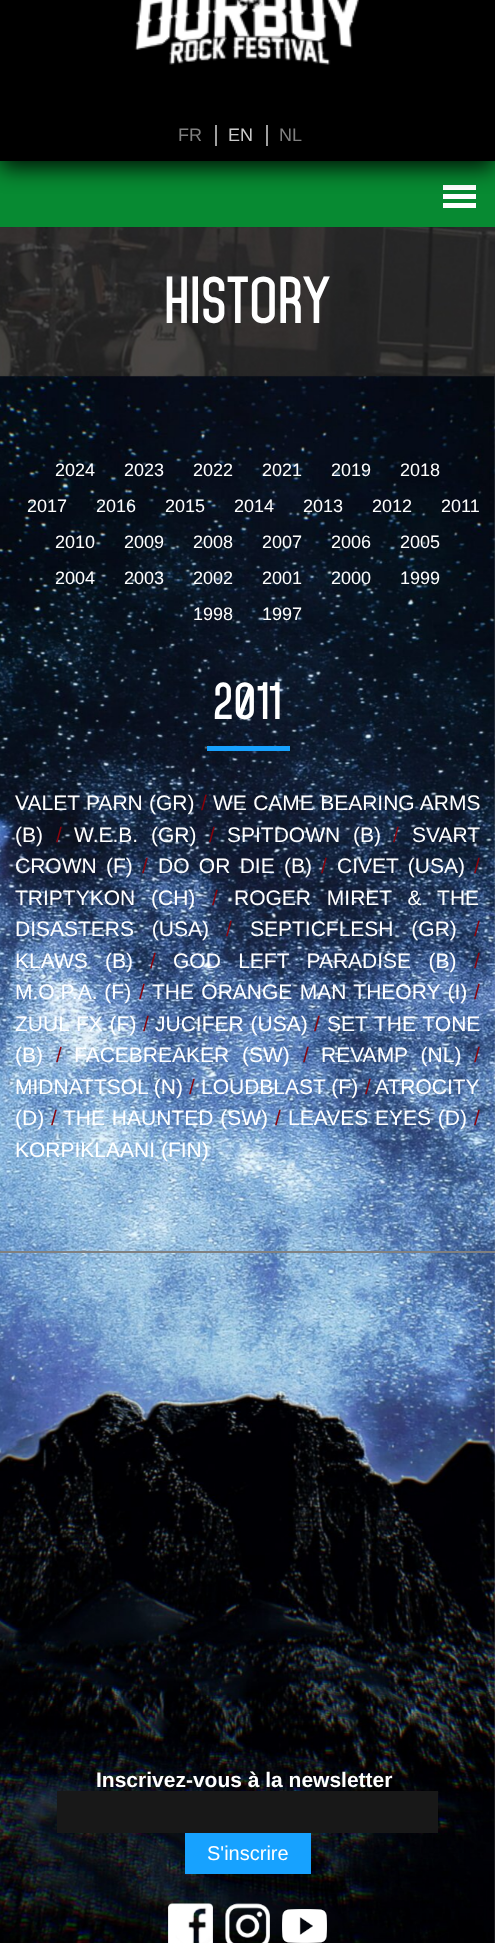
<svg xmlns="http://www.w3.org/2000/svg" width="495" height="1943">
	<rect width="100%" height="100%" fill="#FFFFFF" />
	<image x="0" y="376" width="495" height="1567" href="assets/img1.png" />
	<rect x="0" y="0" width="495" height="102" fill="#000000" />
	<image x="134" y="0" width="225" height="65" href="assets/img2.png" />
	<rect x="0" y="161" width="495" height="66" fill="#078A32" />
	<rect x="443" y="185" width="33" height="5" fill="#FFFFFF" />
	<rect x="443" y="194" width="33" height="5" fill="#FFFFFF" />
	<rect x="0" y="110" width="495" height="58" fill="#000000" fill-opacity="0.87" filter="blur(11px)" />
	<rect x="0" y="102" width="495" height="59" fill="#000000" />
	<text x="178" y="141" font-family="Liberation Sans" font-size="18" fill="#808080">FR</text>
	<rect x="215" y="125" width="2" height="21" fill="#9F9F9F" />
	<text x="228" y="141" font-family="Liberation Sans" font-size="18" fill="#CCCCCC">EN</text>
	<rect x="266" y="125" width="2" height="21" fill="#9F9F9F" />
	<text x="279" y="141" font-family="Liberation Sans" font-size="18" fill="#808080">NL</text>
	<rect x="443" y="203" width="33" height="5" fill="#FFFFFF" />
	<image x="0" y="227" width="495" height="150" href="assets/img3.png" />
	<text x="164" y="323" font-family="Mohave" font-size="57" font-weight="700" fill="#FFFFFF">HISTORY</text>
	<g font-family="Liberation Sans" font-size="18" fill="#FFFFFF">
		<text x="55" y="476">2024</text>
		<text x="124" y="476">2023</text>
		<text x="193" y="476">2022</text>
		<text x="262" y="476">2021</text>
		<text x="331" y="476">2019</text>
		<text x="400" y="476">2018</text>
		<text x="27" y="512">2017</text>
		<text x="96" y="512">2016</text>
		<text x="165" y="512">2015</text>
		<text x="234" y="512">2014</text>
		<text x="303" y="512">2013</text>
		<text x="372" y="512">2012</text>
		<text x="441" y="512">2011</text>
		<text x="55" y="548">2010</text>
		<text x="124" y="548">2009</text>
		<text x="193" y="548">2008</text>
		<text x="262" y="548">2007</text>
		<text x="331" y="548">2006</text>
		<text x="400" y="548">2005</text>
		<text x="55" y="584">2004</text>
		<text x="124" y="584">2003</text>
		<text x="193" y="584">2002</text>
		<text x="262" y="584">2001</text>
		<text x="331" y="584">2000</text>
		<text x="400" y="584">1999</text>
		<text x="193" y="620">1998</text>
		<text x="262" y="620">1997</text>
	</g>
	<text x="213" y="719" font-family="Mohave" font-size="45" font-weight="700" fill="#FFFFFF">2011</text>
	<rect x="207" y="746" width="83" height="5" fill="#17A2FF" />
	<text x="15" y="810" word-spacing="0.5" font-family="Liberation Sans" font-size="21" fill="#FFFFFF">VALET PARN (GR)</text>
	<text x="201" y="810" font-family="Liberation Sans" font-size="21" fill="#88030C">/</text>
	<g font-family="Liberation Sans" font-size="21" fill="#FFFFFF">
		<text x="213" y="810" word-spacing="0.5">WE CAME BEARING ARMS</text>
		<text x="15" y="842">(B)</text>
	</g>
	<text x="56" y="842" font-family="Liberation Sans" font-size="21" fill="#88030C">/</text>
	<text x="74" y="842" word-spacing="7" font-family="Liberation Sans" font-size="21" fill="#FFFFFF">W.E.B. (GR)</text>
	<text x="209" y="842" font-family="Liberation Sans" font-size="21" fill="#88030C">/</text>
	<text x="227" y="842" word-spacing="7" font-family="Liberation Sans" font-size="21" fill="#FFFFFF">SPITDOWN (B)</text>
	<text x="393" y="842" font-family="Liberation Sans" font-size="21" fill="#88030C">/</text>
	<g font-family="Liberation Sans" font-size="21" fill="#FFFFFF">
		<text x="412" y="842">SVART</text>
		<text x="15" y="873" word-spacing="3.5">CROWN (F)</text>
	</g>
	<text x="142" y="873" font-family="Liberation Sans" font-size="21" fill="#88030C">/</text>
	<text x="158" y="873" word-spacing="3.5" font-family="Liberation Sans" font-size="21" fill="#FFFFFF">DO OR DIE (B)</text>
	<text x="321" y="873" font-family="Liberation Sans" font-size="21" fill="#88030C">/</text>
	<text x="337" y="873" word-spacing="3.5" font-family="Liberation Sans" font-size="21" fill="#FFFFFF">CIVET (USA)</text>
	<text x="474" y="873" font-family="Liberation Sans" font-size="21" fill="#88030C">/</text>
	<text x="15" y="905" word-spacing="10" font-family="Liberation Sans" font-size="21" fill="#FFFFFF">TRIPTYKON (CH)</text>
	<text x="212" y="905" font-family="Liberation Sans" font-size="21" fill="#88030C">/</text>
	<g font-family="Liberation Sans" font-size="21" fill="#FFFFFF">
		<text x="234" y="905" word-spacing="10">ROGER MIRET &amp; THE</text>
		<text x="15" y="936" word-spacing="12">DISASTERS (USA)</text>
	</g>
	<text x="226" y="936" font-family="Liberation Sans" font-size="21" fill="#88030C">/</text>
	<text x="250" y="936" word-spacing="12" font-family="Liberation Sans" font-size="21" fill="#FFFFFF">SEPTICFLESH (GR)</text>
	<text x="474" y="936" font-family="Liberation Sans" font-size="21" fill="#88030C">/</text>
	<text x="15" y="968" word-spacing="11.5" font-family="Liberation Sans" font-size="21" fill="#FFFFFF">KLAWS (B)</text>
	<text x="150" y="968" font-family="Liberation Sans" font-size="21" fill="#88030C">/</text>
	<text x="173" y="968" word-spacing="11.5" font-family="Liberation Sans" font-size="21" fill="#FFFFFF">GOD LEFT PARADISE (B)</text>
	<text x="474" y="968" font-family="Liberation Sans" font-size="21" fill="#88030C">/</text>
	<text x="15" y="999" word-spacing="1" font-family="Liberation Sans" font-size="21" fill="#FFFFFF">M.O.P.A. (F)</text>
	<text x="139" y="999" font-family="Liberation Sans" font-size="21" fill="#88030C">/</text>
	<text x="152" y="999" word-spacing="1.5" font-family="Liberation Sans" font-size="21" fill="#FFFFFF">THE ORANGE MAN THEORY (I)</text>
	<text x="474" y="999" font-family="Liberation Sans" font-size="21" fill="#88030C">/</text>
	<text x="15" y="1031" word-spacing="1" font-family="Liberation Sans" font-size="21" fill="#FFFFFF">ZUUL FX (F)</text>
	<text x="143" y="1031" font-family="Liberation Sans" font-size="21" fill="#88030C">/</text>
	<text x="155" y="1031" word-spacing="1" font-family="Liberation Sans" font-size="21" fill="#FFFFFF">JUCIFER (USA)</text>
	<text x="314" y="1031" font-family="Liberation Sans" font-size="21" fill="#88030C">/</text>
	<g font-family="Liberation Sans" font-size="21" fill="#FFFFFF">
		<text x="327" y="1031" word-spacing="1">SET THE TONE</text>
		<text x="15" y="1062">(B)</text>
	</g>
	<text x="56" y="1062" font-family="Liberation Sans" font-size="21" fill="#88030C">/</text>
	<text x="74" y="1062" word-spacing="7" font-family="Liberation Sans" font-size="21" fill="#FFFFFF">FACEBREAKER (SW)</text>
	<text x="303" y="1062" font-family="Liberation Sans" font-size="21" fill="#88030C">/</text>
	<text x="321" y="1062" word-spacing="7" font-family="Liberation Sans" font-size="21" fill="#FFFFFF">REVAMP (NL)</text>
	<text x="474" y="1062" font-family="Liberation Sans" font-size="21" fill="#88030C">/</text>
	<text x="15" y="1094" font-family="Liberation Sans" font-size="21" fill="#FFFFFF">MIDNATTSOL (N)</text>
	<text x="189" y="1094" font-family="Liberation Sans" font-size="21" fill="#88030C">/</text>
	<text x="201" y="1094" font-family="Liberation Sans" font-size="21" fill="#FFFFFF">LOUDBLAST (F)</text>
	<text x="365" y="1094" font-family="Liberation Sans" font-size="21" fill="#88030C">/</text>
	<g font-family="Liberation Sans" font-size="21" fill="#FFFFFF">
		<text x="375" y="1094">ATROCITY</text>
		<text x="15" y="1125">(D)</text>
	</g>
	<text x="51" y="1125" font-family="Liberation Sans" font-size="21" fill="#88030C">/</text>
	<text x="63" y="1125" word-spacing="1" font-family="Liberation Sans" font-size="21" fill="#FFFFFF">THE HAUNTED (SW)</text>
	<text x="275" y="1125" font-family="Liberation Sans" font-size="21" fill="#88030C">/</text>
	<text x="288" y="1125" word-spacing="1" font-family="Liberation Sans" font-size="21" fill="#FFFFFF">LEAVES EYES (D)</text>
	<text x="474" y="1125" font-family="Liberation Sans" font-size="21" fill="#88030C">/</text>
	<text x="15" y="1157" font-family="Liberation Sans" font-size="21" fill="#FFFFFF">KORPIKLAANI (FIN)</text>
	<rect x="0" y="1251" width="495" height="2" fill="#808080" />
	<text x="96" y="1787" font-family="Liberation Sans" font-size="21" font-weight="700" fill="#FFFFFF">Inscrivez-vous à la newsletter</text>
	<rect x="57" y="1791" width="381" height="42" fill="#181818" />
	<rect x="185" y="1833" width="126" height="41" fill="#17A2FF" />
	<text x="207" y="1860" font-family="Liberation Sans" font-size="20" fill="#FFFFFF">S'inscrire</text>
	<image x="168" y="1903" width="45" height="40" href="assets/img4.png" />
	<image x="225" y="1903" width="45" height="40" href="assets/img5.png" />
	<image x="282" y="1909" width="45" height="34" href="assets/img6.png" />
</svg>
